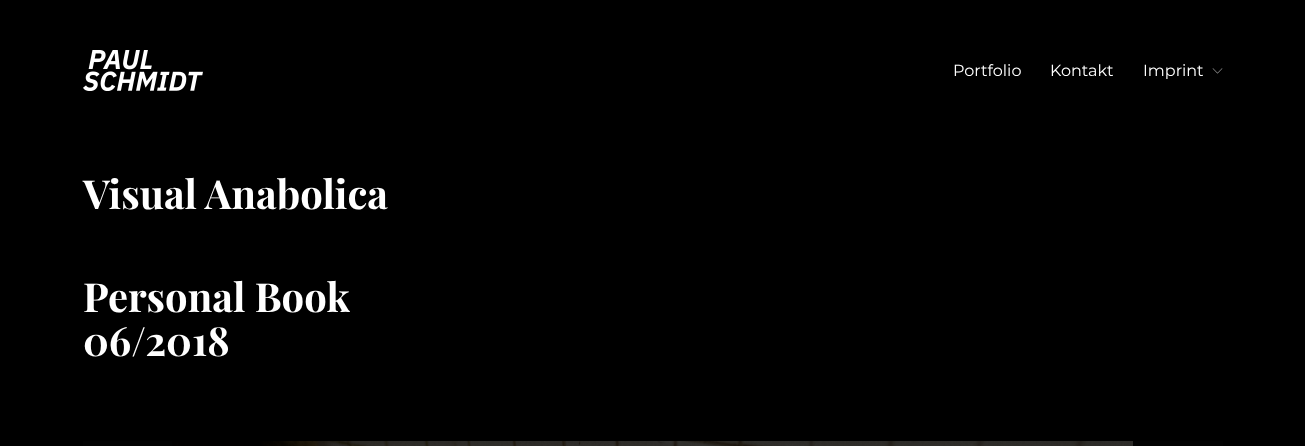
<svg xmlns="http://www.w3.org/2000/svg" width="1305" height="446">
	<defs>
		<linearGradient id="g1" gradientUnits="userSpaceOnUse" x1="653" y1="441" x2="653" y2="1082"><stop offset="0" stop-color="#000000" stop-opacity="0.8" /><stop offset="1" stop-color="#000000" stop-opacity="0" /></linearGradient>
	</defs>
	<rect width="100%" height="100%" fill="#000000" />
	<image x="83" y="50" width="120" height="41" href="assets/img1.png" />
	<g font-family="Montserrat" font-size="16" font-weight="100" fill="#FFFFFF">
		<text x="953" y="76">Portfolio</text>
		<text x="1050" y="76">Kontakt</text>
		<text x="1143" y="76">Imprint</text>
	</g>
	<image x="1212" y="68" width="11" height="6" href="assets/img2.png" />
	<g font-family="Playfair Display" font-size="40" font-weight="700" fill="#FFFFFF">
		<text x="83" y="209">Visual Anabolica</text>
		<text x="83" y="312">Personal Book</text>
		<text x="83" y="356">06/2018</text>
	</g>
	<rect x="83" y="441" width="1140" height="5" fill="#0A0A0A" />
	<image x="172" y="441" width="961" height="5" href="assets/img3.png" />
	<rect x="83" y="441" width="1140" height="5" fill="url(#g1)" />
</svg>
